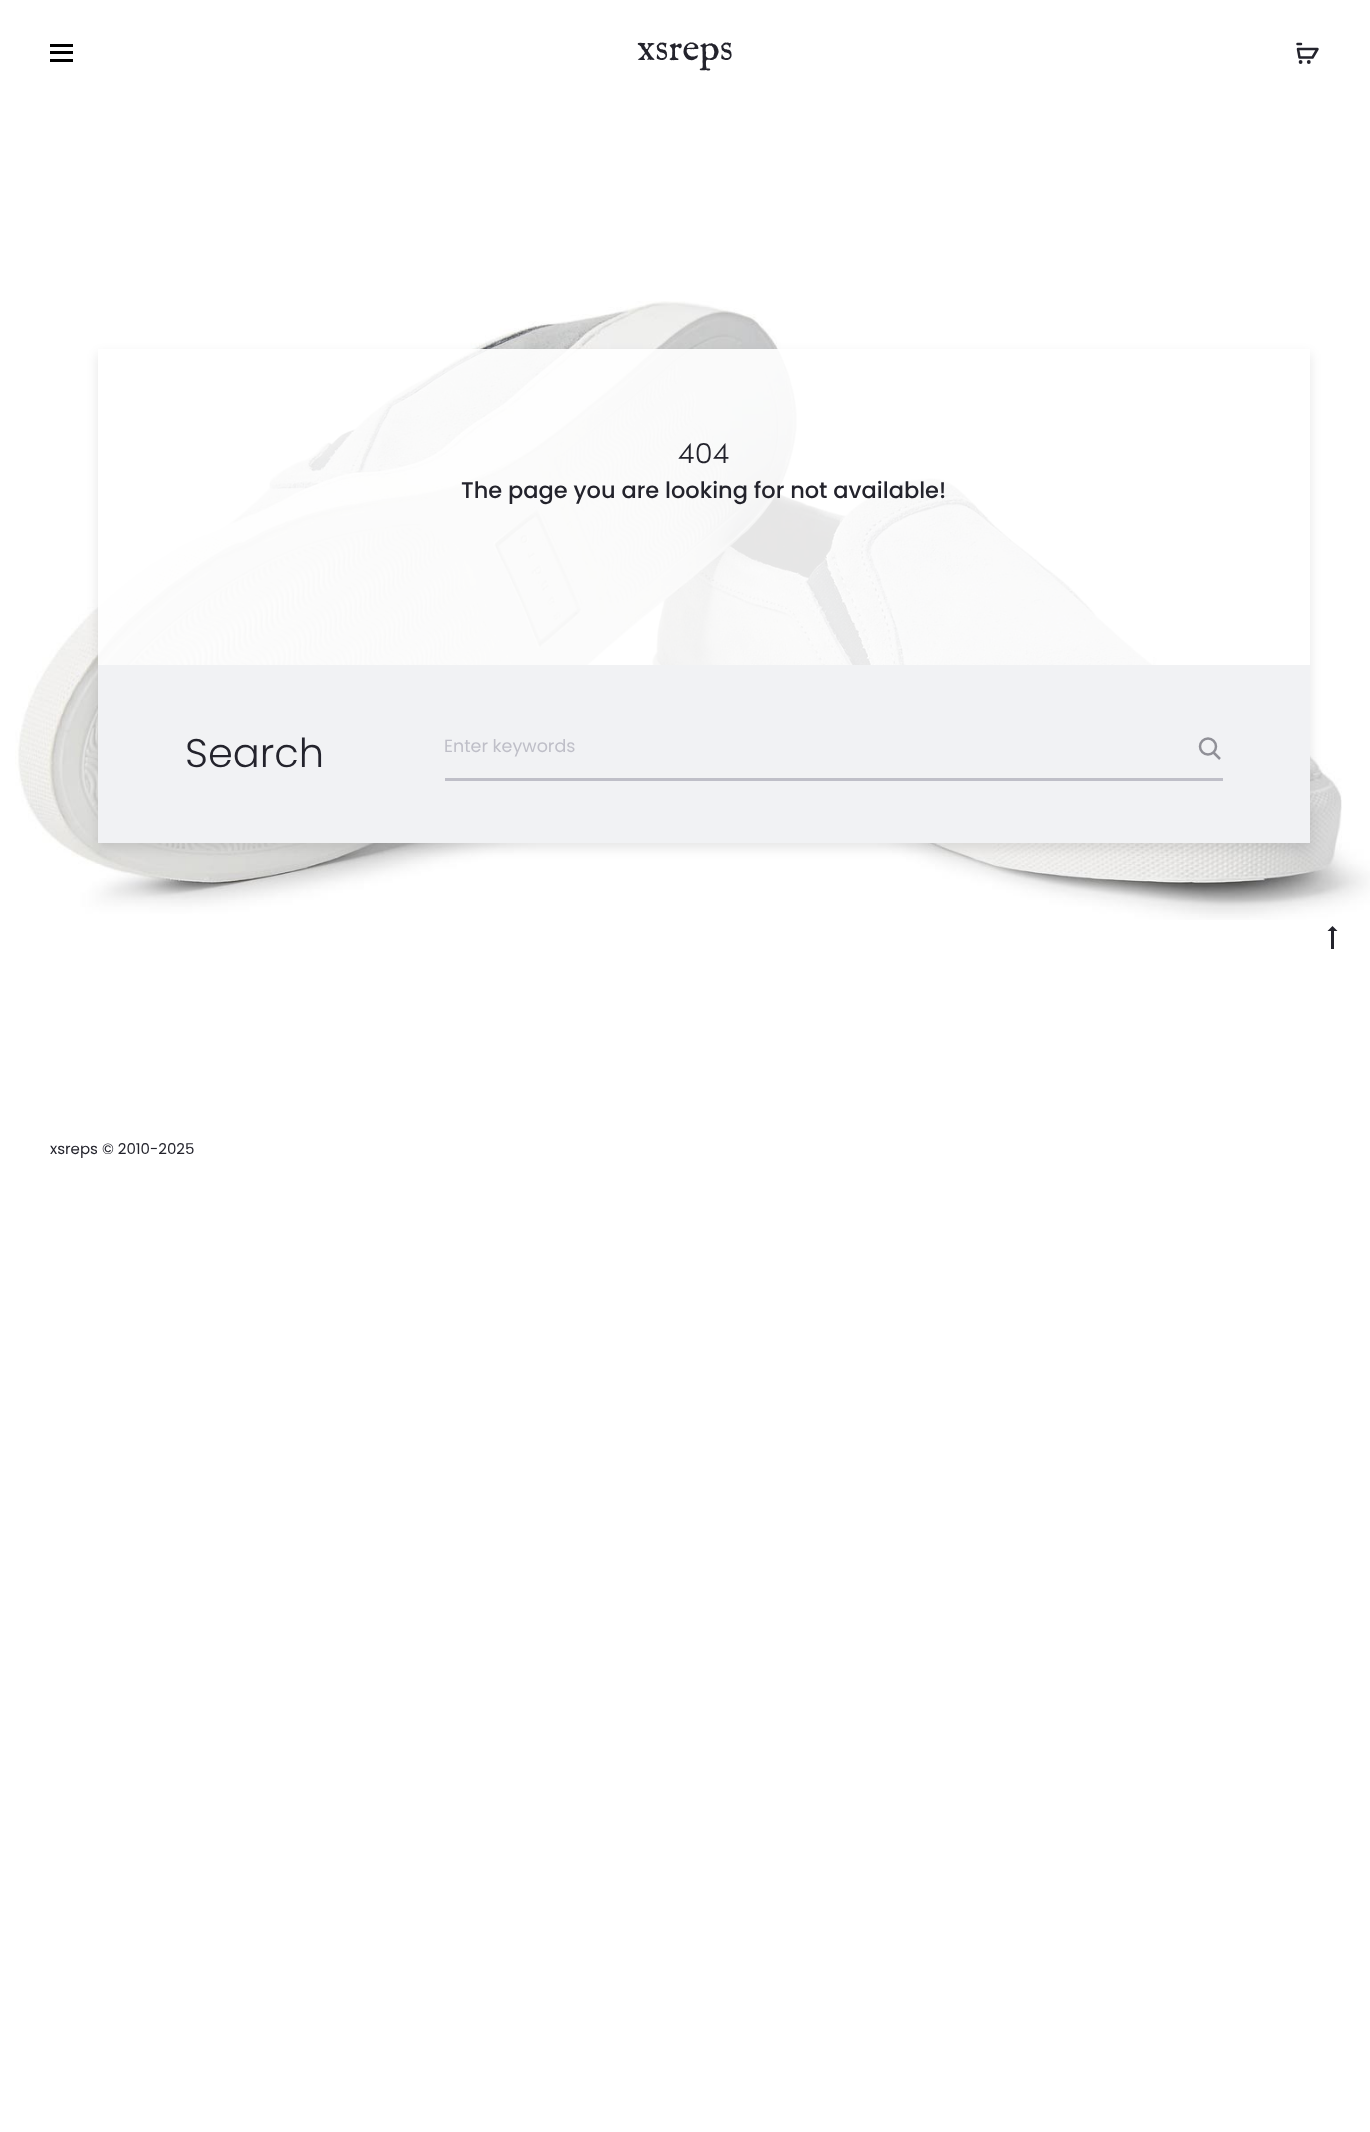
<svg xmlns="http://www.w3.org/2000/svg" width="1370" height="2132">
	<defs>
		<clipPath id="clip1"><path d="M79 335H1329V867H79ZM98 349H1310V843H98Z" clip-rule="evenodd" /></clipPath>
	</defs>
	<rect width="100%" height="100%" fill="#FFFFFF" />
	<image x="15" y="301" width="1355" height="619" href="assets/img1.png" />
	<rect x="50" y="51" width="23" height="3" fill="#000000" />
	<rect x="50" y="44" width="23" height="3" fill="#000000" />
	<rect x="50" y="59" width="23" height="3" fill="#000000" />
	<text x="637" y="60" font-family="IM FELL English" font-size="37.5" fill="#23232C">xsreps</text>
	<path d="M1298 49L1299.5 57.5H1312.5L1317.5 49Z" fill="none" stroke="#23232C" stroke-width="2.5" stroke-linejoin="round" />
	<circle cx="1300.6" cy="62" r="1.9" fill="#23232C" />
	<circle cx="1308.8" cy="62" r="1.9" fill="#23232C" />
	<path d="M1297.5 44H1301" fill="none" stroke="#23232C" stroke-width="2.5" stroke-linecap="round" />
	<g clip-path="url(#clip1)">
		<rect x="98" y="354" width="1212" height="494" fill="#030303" fill-opacity="0.1" filter="blur(6px)" />
	</g>
	<rect x="98" y="349" width="1055" height="316" fill="#FFFFFF" fill-opacity="0.9" />
	<text x="678" y="463" font-family="Sofia" font-size="30" font-weight="300" fill="#23232C">404</text>
	<text x="461" y="498" font-family="Poppins" font-size="22.5" font-weight="500" fill="#23232C">The page you are looking for not available!</text>
	<rect x="98" y="665" width="1212" height="178" fill="#F1F2F4" />
	<text x="185" y="767" font-family="Poppins" font-size="40" font-weight="300" fill="#23232C">Search</text>
	<rect x="445" y="778" width="778" height="3" fill="#BFBFC8" />
	<text x="444" y="752" font-family="Poppins" font-size="17.5" fill="#BFBFC8">Enter keywords</text>
	<circle cx="1208" cy="746.5" r="8" fill="none" stroke="#909097" stroke-width="2.5" />
	<path d="M1213.5 752.5L1220 759" fill="none" stroke="#909097" stroke-width="2.5" />
	<text x="50" y="1154" font-family="Poppins" font-size="15" fill="#23232C">xsreps © 2010-2025</text>
	<path d="M1331 931V949H1334V931H1337.5L1332.5 926L1327.5 931Z" fill="#23232C" />
</svg>
